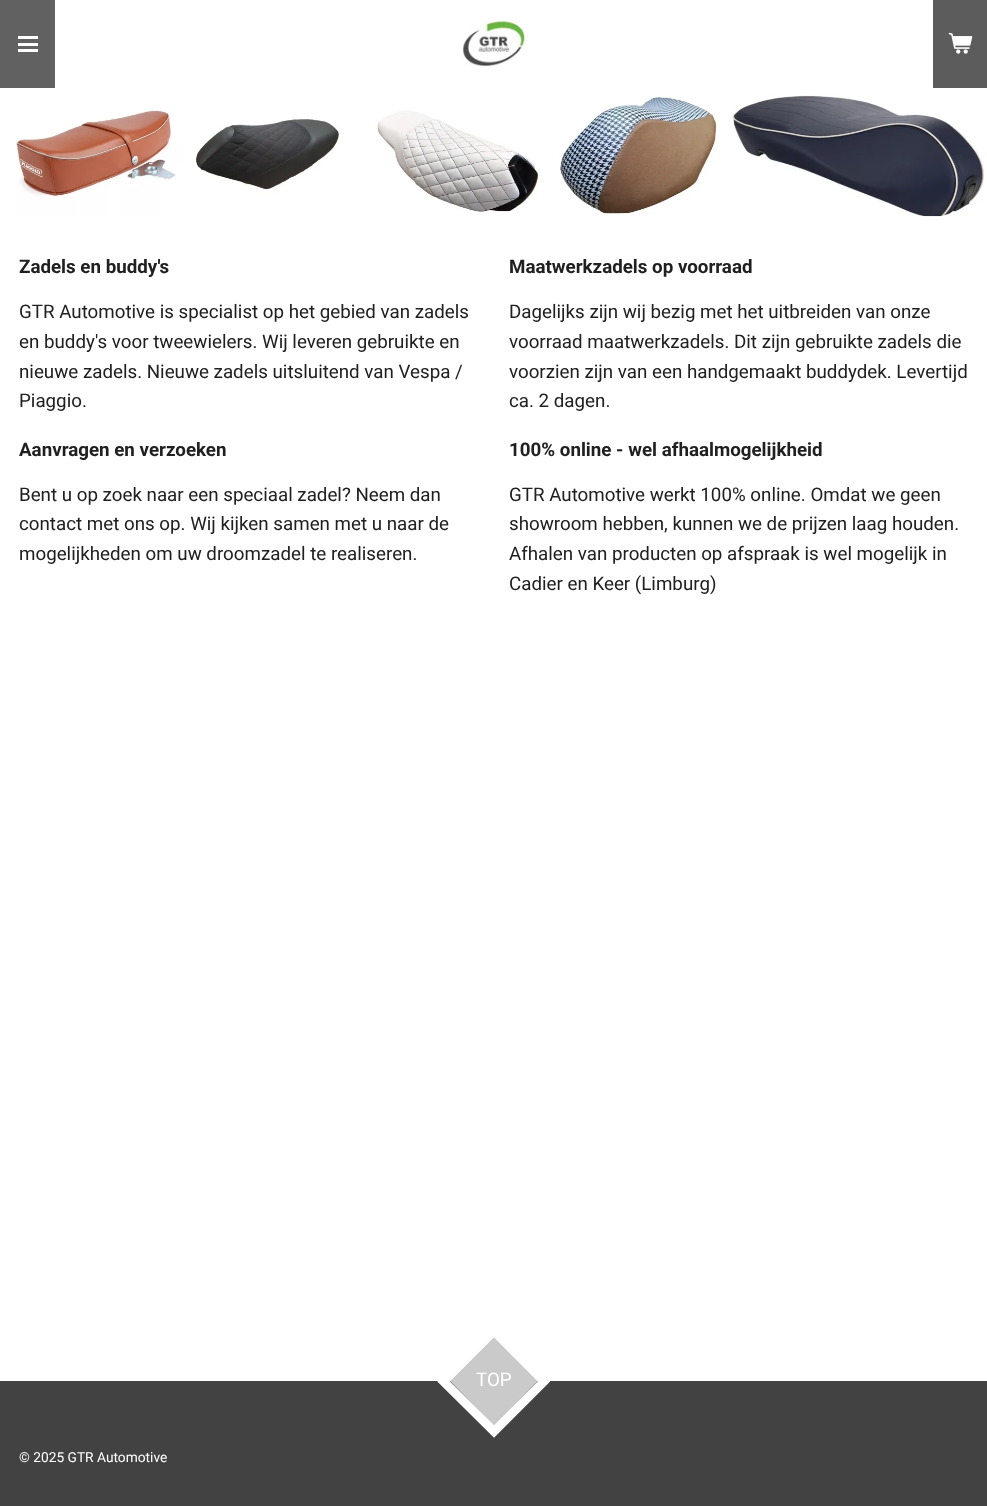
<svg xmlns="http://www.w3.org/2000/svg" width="987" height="1506">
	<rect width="100%" height="100%" fill="#FFFFFF" />
	<rect x="0" y="0" width="55" height="88" fill="#616161" />
	<rect x="18" y="43" width="20" height="3" fill="#FFFFFF" />
	<rect x="18" y="36" width="20" height="3" fill="#FFFFFF" />
	<rect x="18" y="49" width="20" height="3" fill="#FFFFFF" />
	<image x="462" y="20" width="63" height="47" href="assets/img1.png" />
	<rect x="933" y="0" width="54" height="88" fill="#5C5C5C" />
	<image x="948" y="32" width="25" height="22" href="assets/img2.png" />
	<image x="16" y="95" width="969" height="122" href="assets/img3.png" />
	<text x="19" y="273" font-family="Roboto" font-size="18.75" font-weight="700" fill="#202020">Zadels en buddy's</text>
	<g font-family="Roboto" font-size="18.75" fill="#202020">
		<text x="19" y="318">GTR Automotive is specialist op het gebied van zadels</text>
		<text x="19" y="348">en buddy's voor tweewielers. Wij leveren gebruikte en</text>
		<text x="19" y="378">nieuwe zadels. Nieuwe zadels uitsluitend van Vespa /</text>
		<text x="19" y="407">Piaggio.</text>
	</g>
	<text x="509" y="273" font-family="Roboto" font-size="18.75" font-weight="700" fill="#202020">Maatwerkzadels op voorraad</text>
	<g font-family="Roboto" font-size="18.75" fill="#202020">
		<text x="509" y="318">Dagelijks zijn wij bezig met het uitbreiden van onze</text>
		<text x="509" y="348">voorraad maatwerkzadels. Dit zijn gebruikte zadels die</text>
		<text x="509" y="378">voorzien zijn van een handgemaakt buddydek. Levertijd</text>
		<text x="509" y="407">ca. 2 dagen.</text>
	</g>
	<text x="19" y="456" font-family="Roboto" font-size="18.75" font-weight="700" fill="#202020">Aanvragen en verzoeken</text>
	<g font-family="Roboto" font-size="18.75" fill="#202020">
		<text x="19" y="501">Bent u op zoek naar een speciaal zadel? Neem dan</text>
		<text x="19" y="530">contact met ons op. Wij kijken samen met u naar de</text>
		<text x="19" y="560">mogelijkheden om uw droomzadel te realiseren.</text>
	</g>
	<text x="509" y="456" font-family="Roboto" font-size="18.75" font-weight="700" fill="#202020">100% online - wel afhaalmogelijkheid</text>
	<g font-family="Roboto" font-size="18.75" fill="#202020">
		<text x="509" y="501">GTR Automotive werkt 100% online. Omdat we geen</text>
		<text x="509" y="530">showroom hebben, kunnen we de prijzen laag houden.</text>
		<text x="509" y="560">Afhalen van producten op afspraak is wel mogelijk in</text>
		<text x="509" y="590">Cadier en Keer (Limburg)</text>
	</g>
	<rect x="0" y="1381" width="987" height="125" fill="#424242" />
	<path d="M494 1337L538 1381L494 1426L450 1381Z" fill="#CACACA" />
	<path d="M494 1331L544 1381.5L494 1431.5L443.5 1381.5Z" fill="none" stroke="#FFFFFF" stroke-width="8.8" />
	<text x="476" y="1386" font-family="Roboto" font-size="18.75" fill="#FFFFFF">TOP</text>
	<text x="19" y="1462" font-family="Roboto" font-size="13.75" fill="#FFFFFF">© 2025 GTR Automotive</text>
</svg>
